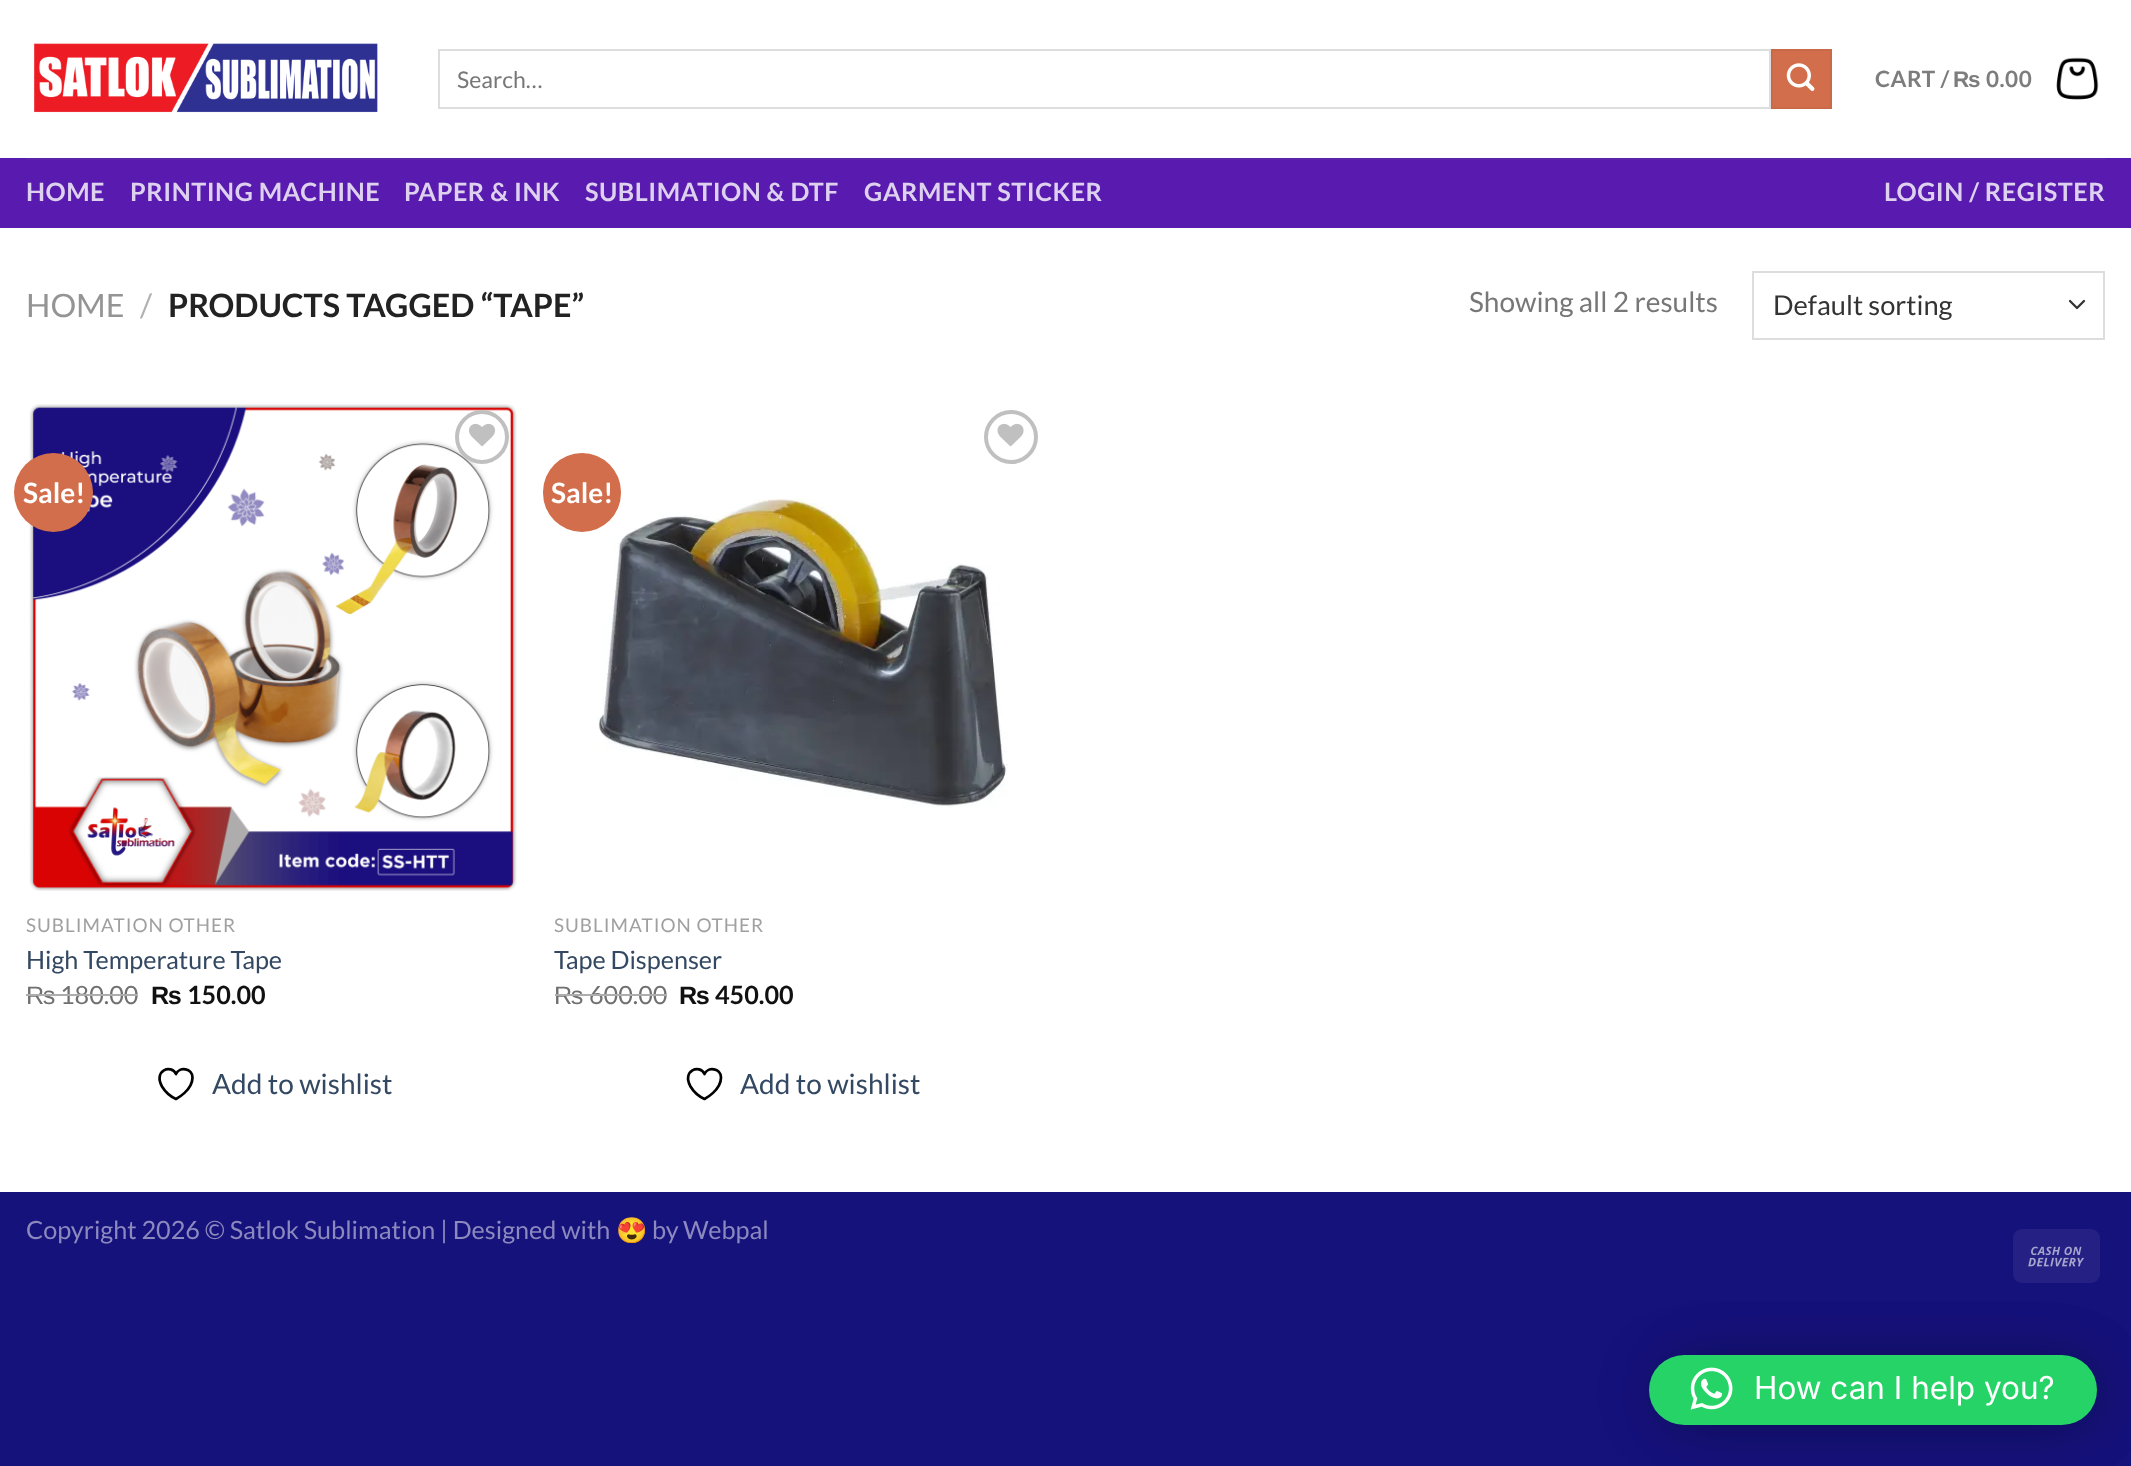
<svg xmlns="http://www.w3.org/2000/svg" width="2131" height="1466">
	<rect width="100%" height="100%" fill="#16127C" />
	<rect x="0" y="0" width="2131" height="1192" fill="#FFFFFF" />
	<image x="34" y="43" width="344" height="70" href="assets/img1.png" />
	<rect x="439" y="50" width="1331" height="58" fill="none" stroke="#DDDDDD" stroke-width="2" />
	<text x="457" y="88" font-family="Lato" font-size="23" fill="#777777">Search…</text>
	<rect x="1772" y="50" width="59" height="58" fill="#D26E4B" stroke="#C86947" stroke-width="2" />
	<image x="1786" y="63" width="29" height="28" href="assets/img2.png" />
	<text x="1875" y="87" font-family="Lato" font-size="22.5" font-weight="700" letter-spacing="0.5" fill="#7D7D7D">CART /</text>
	<text x="1953" y="87" font-family="Liberation Sans" font-size="22.5" font-weight="700" letter-spacing="0.5" fill="#7D7D7D">₨</text>
	<text x="1986" y="87" font-family="Lato" font-size="22.5" font-weight="700" letter-spacing="0.5" fill="#7D7D7D">0.00</text>
	<image x="2056" y="57" width="43" height="43" href="assets/img3.png" />
	<rect x="0" y="158" width="2131" height="70" fill="#581AAF" />
	<rect x="26" y="158" width="2079" height="2" fill="#5B23A9" />
	<g font-family="Lato" font-size="25.2" font-weight="700" letter-spacing="0.5" fill="#DED1EF">
		<text x="26" y="201">HOME</text>
		<text x="130" y="201">PRINTING MACHINE</text>
		<text x="404" y="201">PAPER &amp; INK</text>
		<text x="585" y="201">SUBLIMATION &amp; DTF</text>
		<text x="864" y="201">GARMENT STICKER</text>
		<text x="1884" y="201">LOGIN / REGISTER</text>
	</g>
	<text x="26" y="317" font-family="Lato" font-size="32.25" fill="#949494">HOME</text>
	<text x="140" y="317" font-family="Lato" font-size="32.25" fill="#B2B2B2">/</text>
	<text x="168" y="317" font-family="Lato" font-size="32.25" font-weight="700" fill="#222222">PRODUCTS TAGGED “TAPE”</text>
	<text x="1469" y="312" font-family="Lato" font-size="28" fill="#777777">Showing all 2 results</text>
	<path d="M2070 301L2077 308L2084 301" fill="none" stroke="#333333" stroke-width="2.3" stroke-linecap="round" stroke-linejoin="round" />
	<rect x="1753" y="272" width="351" height="67" fill="none" stroke="#DDDDDD" stroke-width="2" />
	<text x="1773" y="315" font-family="Lato" font-size="27.25" fill="#333333">Default sorting</text>
	<image x="29" y="404" width="488" height="487" href="assets/img4.png" />
	<circle cx="53.5" cy="492.5" r="39.5" fill="#D26E4B" />
	<text x="23" y="503" font-family="Lato" font-size="28" font-weight="700" fill="#FFFFFF">Sale!</text>
	<circle cx="482" cy="437" r="25" fill="none" stroke="#C0C0C0" stroke-width="4" />
	<image x="469" y="423" width="26" height="24" href="assets/img5.png" />
	<text x="26" y="932" font-family="Lato" font-size="18.9" letter-spacing="1" fill="#A0A0A0">SUBLIMATION OTHER</text>
	<text x="26" y="969" font-family="Lato" font-size="25.2" fill="#334862">High Temperature Tape</text>
	<text x="26" y="1004" font-family="Liberation Sans" font-size="25.2" fill="#707070">₨</text>
	<rect x="26" y="994" width="30" height="2" fill="#ADADAD" />
	<text x="60" y="1004" font-family="Lato" font-size="25.2" fill="#707070">180.00</text>
	<rect x="56" y="994" width="82" height="2" fill="#ADADAD" />
	<text x="151" y="1004" font-family="Liberation Sans" font-size="25.2" font-weight="700" fill="#111111">₨</text>
	<text x="187" y="1004" font-family="Lato" font-size="25.2" font-weight="700" fill="#111111">150.00</text>
	<path d="M192.5 1077.5C192.5 1068.5 179.5 1066 176 1074C171.5 1064 153 1070 162 1086.5C165 1091.5 170.5 1096.5 176 1099C176 1099 192.5 1090.5 192.5 1077.5Z" fill="none" stroke="#000000" stroke-width="2.7" stroke-linecap="round" stroke-linejoin="round" />
	<text x="212" y="1094" font-family="Lato" font-size="28" fill="#334862">Add to wishlist</text>
	<image x="598" y="498" width="410" height="310" href="assets/img7.png" />
	<rect x="543" y="453" width="78" height="79" rx="39" fill="#D26E4B" />
	<text x="551" y="503" font-family="Lato" font-size="28" font-weight="700" fill="#FFFFFF">Sale!</text>
	<circle cx="1011" cy="437" r="25" fill="none" stroke="#C0C0C0" stroke-width="4" />
	<image x="997" y="423" width="27" height="24" href="assets/img6.png" />
	<text x="554" y="932" font-family="Lato" font-size="18.9" letter-spacing="1" fill="#A0A0A0">SUBLIMATION OTHER</text>
	<text x="554" y="969" font-family="Lato" font-size="25.2" fill="#334862">Tape Dispenser</text>
	<text x="554" y="1004" font-family="Liberation Sans" font-size="25.2" fill="#707070">₨</text>
	<rect x="555" y="994" width="30" height="2" fill="#ADADAD" />
	<text x="589" y="1004" font-family="Lato" font-size="25.2" fill="#707070">600.00</text>
	<rect x="585" y="994" width="82" height="2" fill="#ADADAD" />
	<text x="679" y="1004" font-family="Liberation Sans" font-size="25.2" font-weight="700" fill="#111111">₨</text>
	<text x="715" y="1004" font-family="Lato" font-size="25.2" font-weight="700" fill="#111111">450.00</text>
	<path d="M721 1077.5C721 1068.5 708 1066 704.5 1074C700 1064 681.5 1070 690.5 1086.5C693.5 1091.5 699 1096.5 704.5 1099C704.5 1099 721 1090.5 721 1077.5Z" fill="none" stroke="#000000" stroke-width="2.7" stroke-linecap="round" stroke-linejoin="round" />
	<text x="740" y="1094" font-family="Lato" font-size="28" fill="#334862">Add to wishlist</text>
	<text x="26" y="1239" font-family="Lato" font-size="25.2" fill="#8B89BE">Copyright 2026 © Satlok Sublimation | Designed with</text>
	<text x="616" y="1239" font-family="Noto Color Emoji" font-size="25.2" fill="#8B89BE">😍</text>
	<g font-family="Lato" font-size="25.2" fill="#8B89BE">
		<text x="652" y="1239">by</text>
		<text x="683" y="1239">Webpal</text>
	</g>
	<rect x="2013" y="1229" width="87" height="54" rx="9" fill="#242084" />
	<image x="2028" y="1246" width="56" height="21" href="assets/img8.png" />
	<rect x="1673" y="1358" width="424" height="70" rx="35" fill="#000000" fill-opacity="0.16" filter="blur(28px)" />
	<rect x="1649" y="1358" width="448" height="70" rx="35" fill="#000000" fill-opacity="0.16" filter="blur(28px)" />
	<rect x="1649" y="1355" width="448" height="70" rx="35" fill="#25D366" />
	<image x="1690" y="1367" width="43" height="43" href="assets/img9.png" />
	<text x="1754" y="1399" font-family="Inter" font-size="31.5" fill="#FFFFFF">How can I help you?</text>
</svg>
